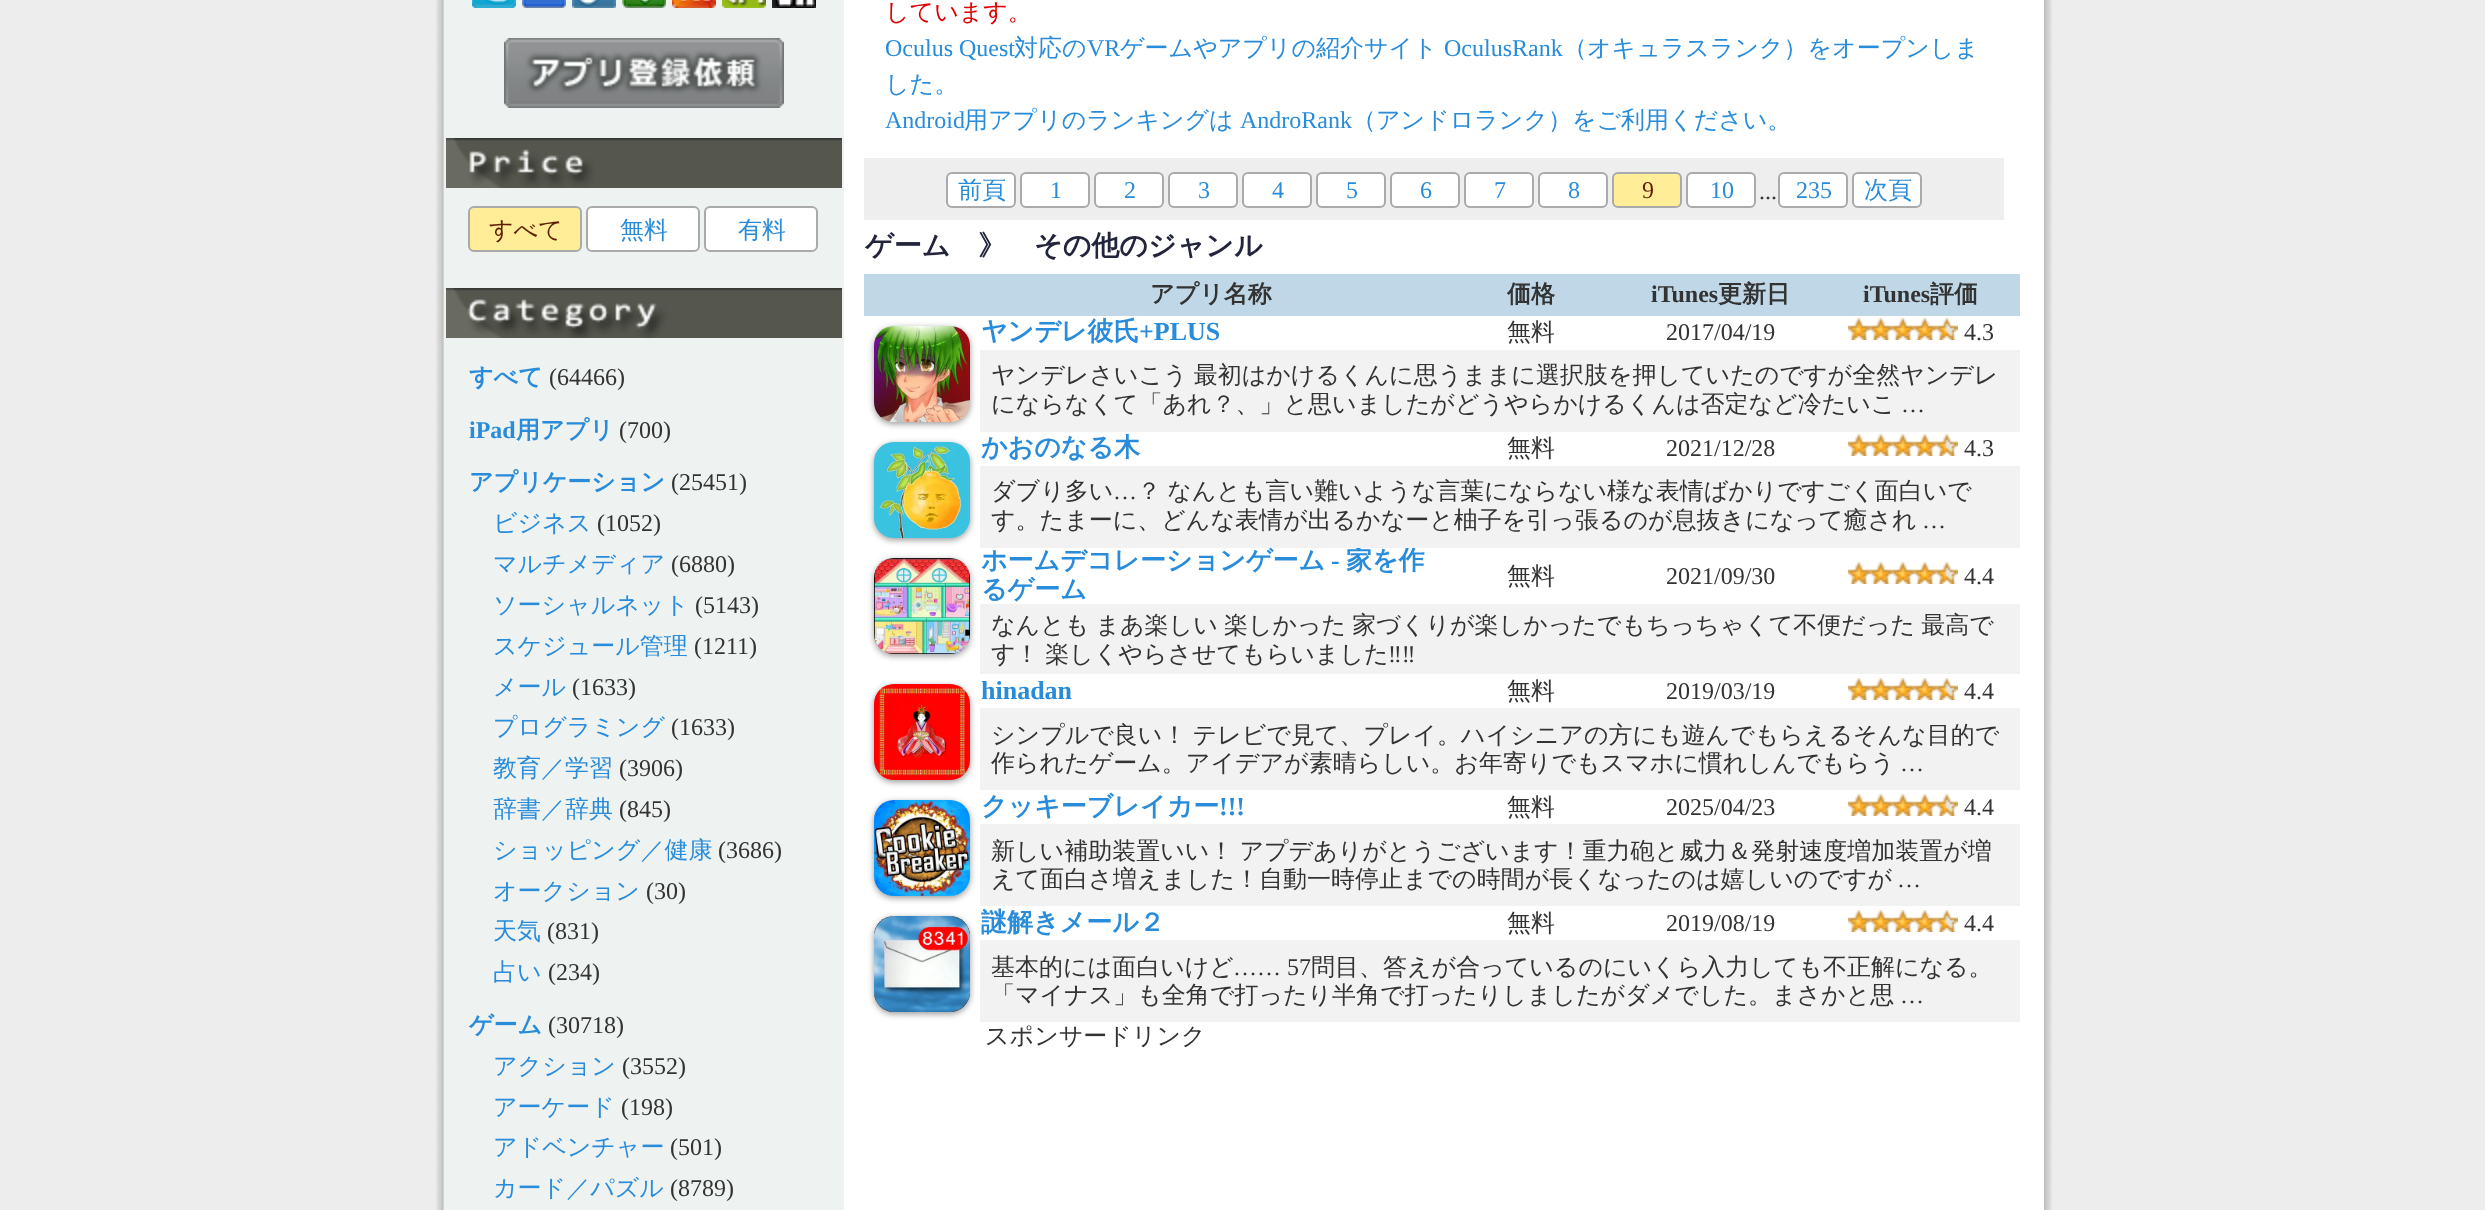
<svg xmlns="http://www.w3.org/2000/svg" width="2485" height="1210">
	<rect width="100%" height="100%" fill="#EDEDED" />
	<image x="436" y="0" width="1616" height="1210" href="assets/img1.png" />
	<rect x="2041" y="0" width="3" height="1210" fill="#FFFFFF" />
	<rect x="444" y="0" width="400" height="1210" fill="#EEF2F1" />
	<image x="472" y="0" width="44" height="8" href="assets/img2.png" />
	<image x="522" y="0" width="44" height="8" href="assets/img3.png" />
	<image x="572" y="0" width="44" height="8" href="assets/img4.png" />
	<image x="622" y="0" width="44" height="8" href="assets/img5.png" />
	<image x="672" y="0" width="44" height="8" href="assets/img6.png" />
	<image x="722" y="0" width="44" height="8" href="assets/img7.png" />
	<image x="772" y="0" width="44" height="8" href="assets/img8.png" />
	<image x="504" y="38" width="280" height="70" href="assets/img9.png" />
	<image x="446" y="138" width="396" height="50" href="assets/img10.png" />
	<rect x="469" y="207" width="112" height="44" rx="5" fill="#FFED97" stroke="#AAAAAA" stroke-width="2" />
	<text x="489" y="238" font-family="WenQuanYi Zen Hei" font-size="24" font-weight="500" fill="#5F1E01">すべて</text>
	<rect x="587" y="207" width="112" height="44" rx="5" fill="#FFFFFF" stroke="#AAAAAA" stroke-width="2" />
	<text x="620" y="238" font-family="WenQuanYi Zen Hei" font-size="24" font-weight="500" fill="#298CDA">無料</text>
	<rect x="705" y="207" width="112" height="44" rx="5" fill="#FFFFFF" stroke="#AAAAAA" stroke-width="2" />
	<text x="738" y="238" font-family="WenQuanYi Zen Hei" font-size="24" font-weight="500" fill="#298CDA">有料</text>
	<image x="446" y="288" width="396" height="50" href="assets/img11.png" />
	<text x="469" y="385" font-family="WenQuanYi Zen Hei" font-size="24" font-weight="700" fill="#298CDA">すべて</text>
	<text x="549" y="385" font-family="Liberation Serif" font-size="24" fill="#333333">(64466)</text>
	<text x="469" y="438" font-family="Liberation Serif" font-size="24" font-weight="700" fill="#298CDA">iPad</text>
	<text x="516" y="438" font-family="WenQuanYi Zen Hei" font-size="24" font-weight="700" fill="#298CDA">用アプリ</text>
	<text x="619" y="438" font-family="Liberation Serif" font-size="24" fill="#333333">(700)</text>
	<text x="469" y="490" font-family="WenQuanYi Zen Hei" font-size="24" font-weight="700" fill="#298CDA">アプリケーション</text>
	<text x="671" y="490" font-family="Liberation Serif" font-size="24" fill="#333333">(25451)</text>
	<text x="493" y="531" font-family="WenQuanYi Zen Hei" font-size="24" font-weight="500" fill="#298CDA">ビジネス</text>
	<text x="597" y="531" font-family="Liberation Serif" font-size="24" fill="#333333">(1052)</text>
	<text x="493" y="572" font-family="WenQuanYi Zen Hei" font-size="24" font-weight="500" fill="#298CDA">マルチメディア</text>
	<text x="671" y="572" font-family="Liberation Serif" font-size="24" fill="#333333">(6880)</text>
	<text x="493" y="613" font-family="WenQuanYi Zen Hei" font-size="24" font-weight="500" fill="#298CDA">ソーシャルネット</text>
	<text x="695" y="613" font-family="Liberation Serif" font-size="24" fill="#333333">(5143)</text>
	<text x="493" y="654" font-family="WenQuanYi Zen Hei" font-size="24" font-weight="500" fill="#298CDA">スケジュール管理</text>
	<text x="694" y="654" font-family="Liberation Serif" font-size="24" fill="#333333">(1211)</text>
	<text x="493" y="695" font-family="WenQuanYi Zen Hei" font-size="24" font-weight="500" fill="#298CDA">メール</text>
	<text x="572" y="695" font-family="Liberation Serif" font-size="24" fill="#333333">(1633)</text>
	<text x="493" y="735" font-family="WenQuanYi Zen Hei" font-size="24" font-weight="500" fill="#298CDA">プログラミング</text>
	<text x="671" y="735" font-family="Liberation Serif" font-size="24" fill="#333333">(1633)</text>
	<text x="493" y="776" font-family="WenQuanYi Zen Hei" font-size="24" font-weight="500" fill="#298CDA">教育／学習</text>
	<text x="619" y="776" font-family="Liberation Serif" font-size="24" fill="#333333">(3906)</text>
	<text x="493" y="817" font-family="WenQuanYi Zen Hei" font-size="24" font-weight="500" fill="#298CDA">辞書／辞典</text>
	<text x="619" y="817" font-family="Liberation Serif" font-size="24" fill="#333333">(845)</text>
	<text x="493" y="858" font-family="WenQuanYi Zen Hei" font-size="24" font-weight="500" fill="#298CDA">ショッピング／健康</text>
	<text x="718" y="858" font-family="Liberation Serif" font-size="24" fill="#333333">(3686)</text>
	<text x="493" y="899" font-family="WenQuanYi Zen Hei" font-size="24" font-weight="500" fill="#298CDA">オークション</text>
	<text x="646" y="899" font-family="Liberation Serif" font-size="24" fill="#333333">(30)</text>
	<text x="493" y="939" font-family="WenQuanYi Zen Hei" font-size="24" font-weight="500" fill="#298CDA">天気</text>
	<text x="547" y="939" font-family="Liberation Serif" font-size="24" fill="#333333">(831)</text>
	<text x="493" y="980" font-family="WenQuanYi Zen Hei" font-size="24" font-weight="500" fill="#298CDA">占い</text>
	<text x="548" y="980" font-family="Liberation Serif" font-size="24" fill="#333333">(234)</text>
	<text x="469" y="1033" font-family="WenQuanYi Zen Hei" font-size="24" font-weight="700" fill="#298CDA">ゲーム</text>
	<text x="548" y="1033" font-family="Liberation Serif" font-size="24" fill="#333333">(30718)</text>
	<text x="493" y="1074" font-family="WenQuanYi Zen Hei" font-size="24" font-weight="500" fill="#298CDA">アクション</text>
	<text x="622" y="1074" font-family="Liberation Serif" font-size="24" fill="#333333">(3552)</text>
	<text x="493" y="1115" font-family="WenQuanYi Zen Hei" font-size="24" font-weight="500" fill="#298CDA">アーケード</text>
	<text x="621" y="1115" font-family="Liberation Serif" font-size="24" fill="#333333">(198)</text>
	<text x="493" y="1155" font-family="WenQuanYi Zen Hei" font-size="24" font-weight="500" fill="#298CDA">アドベンチャー</text>
	<text x="670" y="1155" font-family="Liberation Serif" font-size="24" fill="#333333">(501)</text>
	<text x="493" y="1196" font-family="WenQuanYi Zen Hei" font-size="24" font-weight="500" fill="#298CDA">カード／パズル</text>
	<text x="670" y="1196" font-family="Liberation Serif" font-size="24" fill="#333333">(8789)</text>
	<text x="885" y="20" font-family="WenQuanYi Zen Hei" font-size="24" font-weight="500" fill="#DD0000">しています。</text>
	<text x="885" y="56" font-family="Liberation Serif" font-size="24" fill="#298CDA">Oculus Quest</text>
	<text x="1014" y="56" font-family="WenQuanYi Zen Hei" font-size="24" font-weight="500" fill="#298CDA">対応の</text>
	<text x="1087" y="56" font-family="Liberation Serif" font-size="24" fill="#298CDA">VR</text>
	<text x="1120" y="56" font-family="WenQuanYi Zen Hei" font-size="24" font-weight="500" fill="#298CDA">ゲームやアプリの紹介サイト</text>
	<text x="1444" y="56" font-family="Liberation Serif" font-size="24" fill="#298CDA">OculusRank</text>
	<g font-family="WenQuanYi Zen Hei" font-size="24" font-weight="500" fill="#298CDA">
		<text x="1563" y="56">（オキュラスランク）をオープンしま</text>
		<text x="885" y="92">した。</text>
	</g>
	<text x="885" y="128" font-family="Liberation Serif" font-size="24" fill="#298CDA">Android</text>
	<text x="964" y="128" font-family="WenQuanYi Zen Hei" font-size="24" font-weight="500" fill="#298CDA">用アプリのランキングは</text>
	<text x="1240" y="128" font-family="Liberation Serif" font-size="24" fill="#298CDA">AndroRank</text>
	<text x="1352" y="128" font-family="WenQuanYi Zen Hei" font-size="24" font-weight="500" fill="#298CDA">（アンドロランク）をご利用ください。</text>
	<rect x="864" y="158" width="1140" height="62" fill="#EEEEEE" />
	<rect x="947" y="173" width="68" height="34" rx="5" fill="#FFFFFF" stroke="#AAAAAA" stroke-width="2" />
	<text x="958" y="198" font-family="WenQuanYi Zen Hei" font-size="24" font-weight="500" fill="#298CDA">前頁</text>
	<rect x="1021" y="173" width="68" height="34" rx="5" fill="#FFFFFF" stroke="#AAAAAA" stroke-width="2" />
	<text x="1050" y="198" font-family="Liberation Serif" font-size="24" fill="#298CDA">1</text>
	<rect x="1095" y="173" width="68" height="34" rx="5" fill="#FFFFFF" stroke="#AAAAAA" stroke-width="2" />
	<text x="1124" y="198" font-family="Liberation Serif" font-size="24" fill="#298CDA">2</text>
	<rect x="1169" y="173" width="68" height="34" rx="5" fill="#FFFFFF" stroke="#AAAAAA" stroke-width="2" />
	<text x="1198" y="198" font-family="Liberation Serif" font-size="24" fill="#298CDA">3</text>
	<rect x="1243" y="173" width="68" height="34" rx="5" fill="#FFFFFF" stroke="#AAAAAA" stroke-width="2" />
	<text x="1272" y="198" font-family="Liberation Serif" font-size="24" fill="#298CDA">4</text>
	<rect x="1317" y="173" width="68" height="34" rx="5" fill="#FFFFFF" stroke="#AAAAAA" stroke-width="2" />
	<text x="1346" y="198" font-family="Liberation Serif" font-size="24" fill="#298CDA">5</text>
	<rect x="1391" y="173" width="68" height="34" rx="5" fill="#FFFFFF" stroke="#AAAAAA" stroke-width="2" />
	<text x="1420" y="198" font-family="Liberation Serif" font-size="24" fill="#298CDA">6</text>
	<rect x="1465" y="173" width="68" height="34" rx="5" fill="#FFFFFF" stroke="#AAAAAA" stroke-width="2" />
	<text x="1494" y="198" font-family="Liberation Serif" font-size="24" fill="#298CDA">7</text>
	<rect x="1539" y="173" width="68" height="34" rx="5" fill="#FFFFFF" stroke="#AAAAAA" stroke-width="2" />
	<text x="1568" y="198" font-family="Liberation Serif" font-size="24" fill="#298CDA">8</text>
	<rect x="1613" y="173" width="68" height="34" rx="5" fill="#FFED97" stroke="#AAAAAA" stroke-width="2" />
	<text x="1642" y="198" font-family="Liberation Serif" font-size="24" fill="#5F1E01">9</text>
	<rect x="1687" y="173" width="68" height="34" rx="5" fill="#FFFFFF" stroke="#AAAAAA" stroke-width="2" />
	<text x="1710" y="198" font-family="Liberation Serif" font-size="24" fill="#298CDA">10</text>
	<text x="1759" y="199" font-family="Liberation Serif" font-size="24" fill="#333333">...</text>
	<rect x="1779" y="173" width="68" height="34" rx="5" fill="#FFFFFF" stroke="#AAAAAA" stroke-width="2" />
	<text x="1796" y="198" font-family="Liberation Serif" font-size="24" fill="#298CDA">235</text>
	<rect x="1853" y="173" width="68" height="34" rx="5" fill="#FFFFFF" stroke="#AAAAAA" stroke-width="2" />
	<text x="1864" y="198" font-family="WenQuanYi Zen Hei" font-size="24" font-weight="500" fill="#298CDA">次頁</text>
	<g font-family="WenQuanYi Zen Hei" font-size="28" font-weight="700" fill="#22253C">
		<text x="865" y="255">ゲーム</text>
		<text x="978" y="255">》</text>
		<text x="1034" y="255">その他のジャンル</text>
	</g>
	<rect x="864" y="274" width="1156" height="42" fill="#BFD7E7" />
	<g font-family="WenQuanYi Zen Hei" font-size="24" font-weight="700" fill="#333333">
		<text x="1150" y="302">アプリ名称</text>
		<text x="1507" y="302">価格</text>
	</g>
	<text x="1651" y="302" font-family="Liberation Serif" font-size="24" font-weight="700" fill="#333333">iTunes</text>
	<text x="1718" y="302" font-family="WenQuanYi Zen Hei" font-size="24" font-weight="700" fill="#333333">更新日</text>
	<text x="1863" y="302" font-family="Liberation Serif" font-size="24" font-weight="700" fill="#333333">iTunes</text>
	<text x="1930" y="302" font-family="WenQuanYi Zen Hei" font-size="24" font-weight="700" fill="#333333">評価</text>
	<rect x="874" y="328" width="96" height="96" rx="20" fill="#000000" fill-opacity="0.4" filter="blur(3px)" />
	<rect x="874" y="326" width="96" height="96" rx="20" fill="#CCCCCC" />
	<image x="874" y="326" width="96" height="96" href="assets/img12.png" />
	<text x="981" y="340" font-family="WenQuanYi Zen Hei" font-size="26" font-weight="700" fill="#298CDA">ヤンデレ彼氏</text>
	<text x="1139" y="340" font-family="Liberation Serif" font-size="26" font-weight="700" fill="#298CDA">+PLUS</text>
	<text x="1507" y="340" font-family="WenQuanYi Zen Hei" font-size="24" font-weight="500" fill="#333333">無料</text>
	<text x="1666" y="340" font-family="Liberation Serif" font-size="24" fill="#333333">2017/04/19</text>
	<image x="1848" y="318" width="110" height="22" href="assets/img13.png" />
	<text x="1964" y="340" font-family="Liberation Serif" font-size="24" fill="#333333">4.3</text>
	<rect x="980" y="350" width="1040" height="82" fill="#F2F2F2" />
	<g font-family="WenQuanYi Zen Hei" font-size="24" font-weight="500" fill="#333333">
		<text x="991" y="383" word-spacing="-1">ヤンデレさいこう 最初はかけるくんに思うままに選択肢を押していたので</text>
		<text x="1803" y="383">すが全然ヤンデレ</text>
		<text x="991" y="412">にならなくて「あれ？、」と思いましたがどうやらかけるくんは否定など冷たいこ</text>
	</g>
	<text x="1901" y="412" font-family="Liberation Serif" font-size="24" fill="#333333">…</text>
	<rect x="874" y="444" width="96" height="96" rx="20" fill="#000000" fill-opacity="0.4" filter="blur(3px)" />
	<rect x="874" y="442" width="96" height="96" rx="20" fill="#CCCCCC" />
	<image x="874" y="442" width="96" height="96" href="assets/img14.png" />
	<text x="981" y="456" font-family="WenQuanYi Zen Hei" font-size="26" font-weight="700" fill="#298CDA">かおのなる木</text>
	<text x="1507" y="456" font-family="WenQuanYi Zen Hei" font-size="24" font-weight="500" fill="#333333">無料</text>
	<text x="1666" y="456" font-family="Liberation Serif" font-size="24" fill="#333333">2021/12/28</text>
	<image x="1848" y="434" width="110" height="22" href="assets/img13.png" />
	<text x="1964" y="456" font-family="Liberation Serif" font-size="24" fill="#333333">4.3</text>
	<text x="1346" y="569" font-family="WenQuanYi Zen Hei" font-size="26" font-weight="700" fill="#298CDA">家を作</text>
	<rect x="980" y="466" width="1040" height="82" fill="#F2F2F2" />
	<text x="991" y="499" font-family="WenQuanYi Zen Hei" font-size="24" font-weight="500" fill="#333333">ダブり多い</text>
	<text x="1113" y="499" font-family="Liberation Serif" font-size="24" fill="#333333">…</text>
	<g font-family="WenQuanYi Zen Hei" font-size="24" font-weight="500" fill="#333333">
		<text x="1137" y="499" word-spacing="-1">？ なんとも言い難いような言葉にならない様な表情ばかりで</text>
		<text x="1801" y="499">すごく面白いで</text>
		<text x="991" y="528">す。たまーに、どんな表情が出るかなーと柚子を引っ張るのが息抜きになって癒され</text>
	</g>
	<text x="1922" y="528" font-family="Liberation Serif" font-size="24" fill="#333333">…</text>
	<rect x="874" y="560" width="96" height="96" rx="20" fill="#000000" fill-opacity="0.4" filter="blur(3px)" />
	<rect x="874" y="558" width="96" height="96" rx="20" fill="#CCCCCC" />
	<image x="874" y="558" width="96" height="96" href="assets/img15.png" />
	<text x="981" y="569" font-family="WenQuanYi Zen Hei" font-size="26" font-weight="700" fill="#298CDA">ホームデコレーションゲーム</text>
	<text x="1331" y="569" font-family="Liberation Serif" font-size="26" font-weight="700" fill="#298CDA">-</text>
	<text x="981" y="598" font-family="WenQuanYi Zen Hei" font-size="26" font-weight="700" fill="#298CDA">るゲーム</text>
	<text x="1507" y="584" font-family="WenQuanYi Zen Hei" font-size="24" font-weight="500" fill="#333333">無料</text>
	<text x="1666" y="584" font-family="Liberation Serif" font-size="24" fill="#333333">2021/09/30</text>
	<image x="1848" y="562" width="110" height="22" href="assets/img13.png" />
	<text x="1964" y="584" font-family="Liberation Serif" font-size="24" fill="#333333">4.4</text>
	<rect x="980" y="604" width="1040" height="70" fill="#F2F2F2" />
	<g font-family="WenQuanYi Zen Hei" font-size="24" font-weight="500" fill="#333333">
		<text x="991" y="633" word-spacing="-1">なんとも まあ楽しい 楽しかった 家づくりが楽しかったでもちっちゃくて不便だった 最高で</text>
		<text x="991" y="662">す</text>
		<text x="1015" y="662" word-spacing="-1">！ 楽しくやらさせてもらいました</text>
	</g>
	<text x="1388" y="662" font-family="Liberation Serif" font-size="24" fill="#333333">‼︎‼︎</text>
	<rect x="874" y="686" width="96" height="96" rx="20" fill="#000000" fill-opacity="0.4" filter="blur(3px)" />
	<rect x="874" y="684" width="96" height="96" rx="20" fill="#CCCCCC" />
	<image x="874" y="684" width="96" height="96" href="assets/img16.png" />
	<text x="981" y="699" font-family="Liberation Serif" font-size="26" font-weight="700" fill="#298CDA">hinadan</text>
	<text x="1507" y="699" font-family="WenQuanYi Zen Hei" font-size="24" font-weight="500" fill="#333333">無料</text>
	<text x="1666" y="699" font-family="Liberation Serif" font-size="24" fill="#333333">2019/03/19</text>
	<image x="1848" y="678" width="110" height="22" href="assets/img13.png" />
	<text x="1964" y="699" font-family="Liberation Serif" font-size="24" fill="#333333">4.4</text>
	<rect x="980" y="708" width="1040" height="82" fill="#F2F2F2" />
	<g font-family="WenQuanYi Zen Hei" font-size="24" font-weight="500" fill="#333333">
		<text x="991" y="743" word-spacing="-1">シンプルで良い！ テレビで見て、プレイ。ハイシニアの方にも遊んでもらえるそんな目的で</text>
		<text x="991" y="771">作られたゲーム。アイデアが素晴らしい。お年寄りでもスマホに慣れしんでもらう</text>
	</g>
	<text x="1900" y="771" font-family="Liberation Serif" font-size="24" fill="#333333">…</text>
	<rect x="874" y="802" width="96" height="96" rx="20" fill="#000000" fill-opacity="0.4" filter="blur(3px)" />
	<rect x="874" y="800" width="96" height="96" rx="20" fill="#CCCCCC" />
	<image x="874" y="800" width="96" height="96" href="assets/img17.png" />
	<text x="981" y="815" font-family="WenQuanYi Zen Hei" font-size="26" font-weight="700" fill="#298CDA">クッキーブレイカー</text>
	<text x="1219" y="815" font-family="Liberation Serif" font-size="26" font-weight="700" fill="#298CDA">!!!</text>
	<text x="1507" y="815" font-family="WenQuanYi Zen Hei" font-size="24" font-weight="500" fill="#333333">無料</text>
	<text x="1666" y="815" font-family="Liberation Serif" font-size="24" fill="#333333">2025/04/23</text>
	<image x="1848" y="794" width="110" height="22" href="assets/img13.png" />
	<text x="1964" y="815" font-family="Liberation Serif" font-size="24" fill="#333333">4.4</text>
	<rect x="980" y="824" width="1040" height="82" fill="#F2F2F2" />
	<g font-family="WenQuanYi Zen Hei" font-size="24" font-weight="500" fill="#333333">
		<text x="991" y="859" word-spacing="-1">新しい補助装置いい！ アプデありがとうございま</text>
		<text x="1534" y="859">す！重力砲と威力＆発射速度増加装置が増</text>
		<text x="991" y="887">えて面白さ増えました！自動一時停止までの時間が長くなったのは嬉しいのですが</text>
	</g>
	<text x="1897" y="887" font-family="Liberation Serif" font-size="24" fill="#333333">…</text>
	<rect x="874" y="918" width="96" height="96" rx="20" fill="#000000" fill-opacity="0.4" filter="blur(3px)" />
	<rect x="874" y="916" width="96" height="96" rx="20" fill="#CCCCCC" />
	<image x="874" y="916" width="96" height="96" href="assets/img18.png" />
	<text x="981" y="931" font-family="WenQuanYi Zen Hei" font-size="26" font-weight="700" fill="#298CDA">謎解きメール２</text>
	<text x="1507" y="931" font-family="WenQuanYi Zen Hei" font-size="24" font-weight="500" fill="#333333">無料</text>
	<text x="1666" y="931" font-family="Liberation Serif" font-size="24" fill="#333333">2019/08/19</text>
	<image x="1848" y="910" width="110" height="22" href="assets/img13.png" />
	<text x="1964" y="931" font-family="Liberation Serif" font-size="24" fill="#333333">4.4</text>
	<rect x="980" y="940" width="1040" height="82" fill="#F2F2F2" />
	<text x="991" y="975" font-family="WenQuanYi Zen Hei" font-size="24" font-weight="500" fill="#333333">基本的には面白いけど</text>
	<text x="1233" y="975" font-family="Liberation Serif" font-size="24" fill="#333333">…… 57</text>
	<g font-family="WenQuanYi Zen Hei" font-size="24" font-weight="500" fill="#333333">
		<text x="1311" y="975">問目、答えが合っているのにいくら入力しても不正解になる。</text>
		<text x="991" y="1003">「マイナス」も全角で打ったり半角で打ったりしましたがダメでした。まさかと思</text>
	</g>
	<text x="1900" y="1003" font-family="Liberation Serif" font-size="24" fill="#333333">…</text>
	<text x="985" y="1044" font-family="WenQuanYi Zen Hei" font-size="24" font-weight="500" fill="#333333">スポンサードリンク</text>
</svg>
